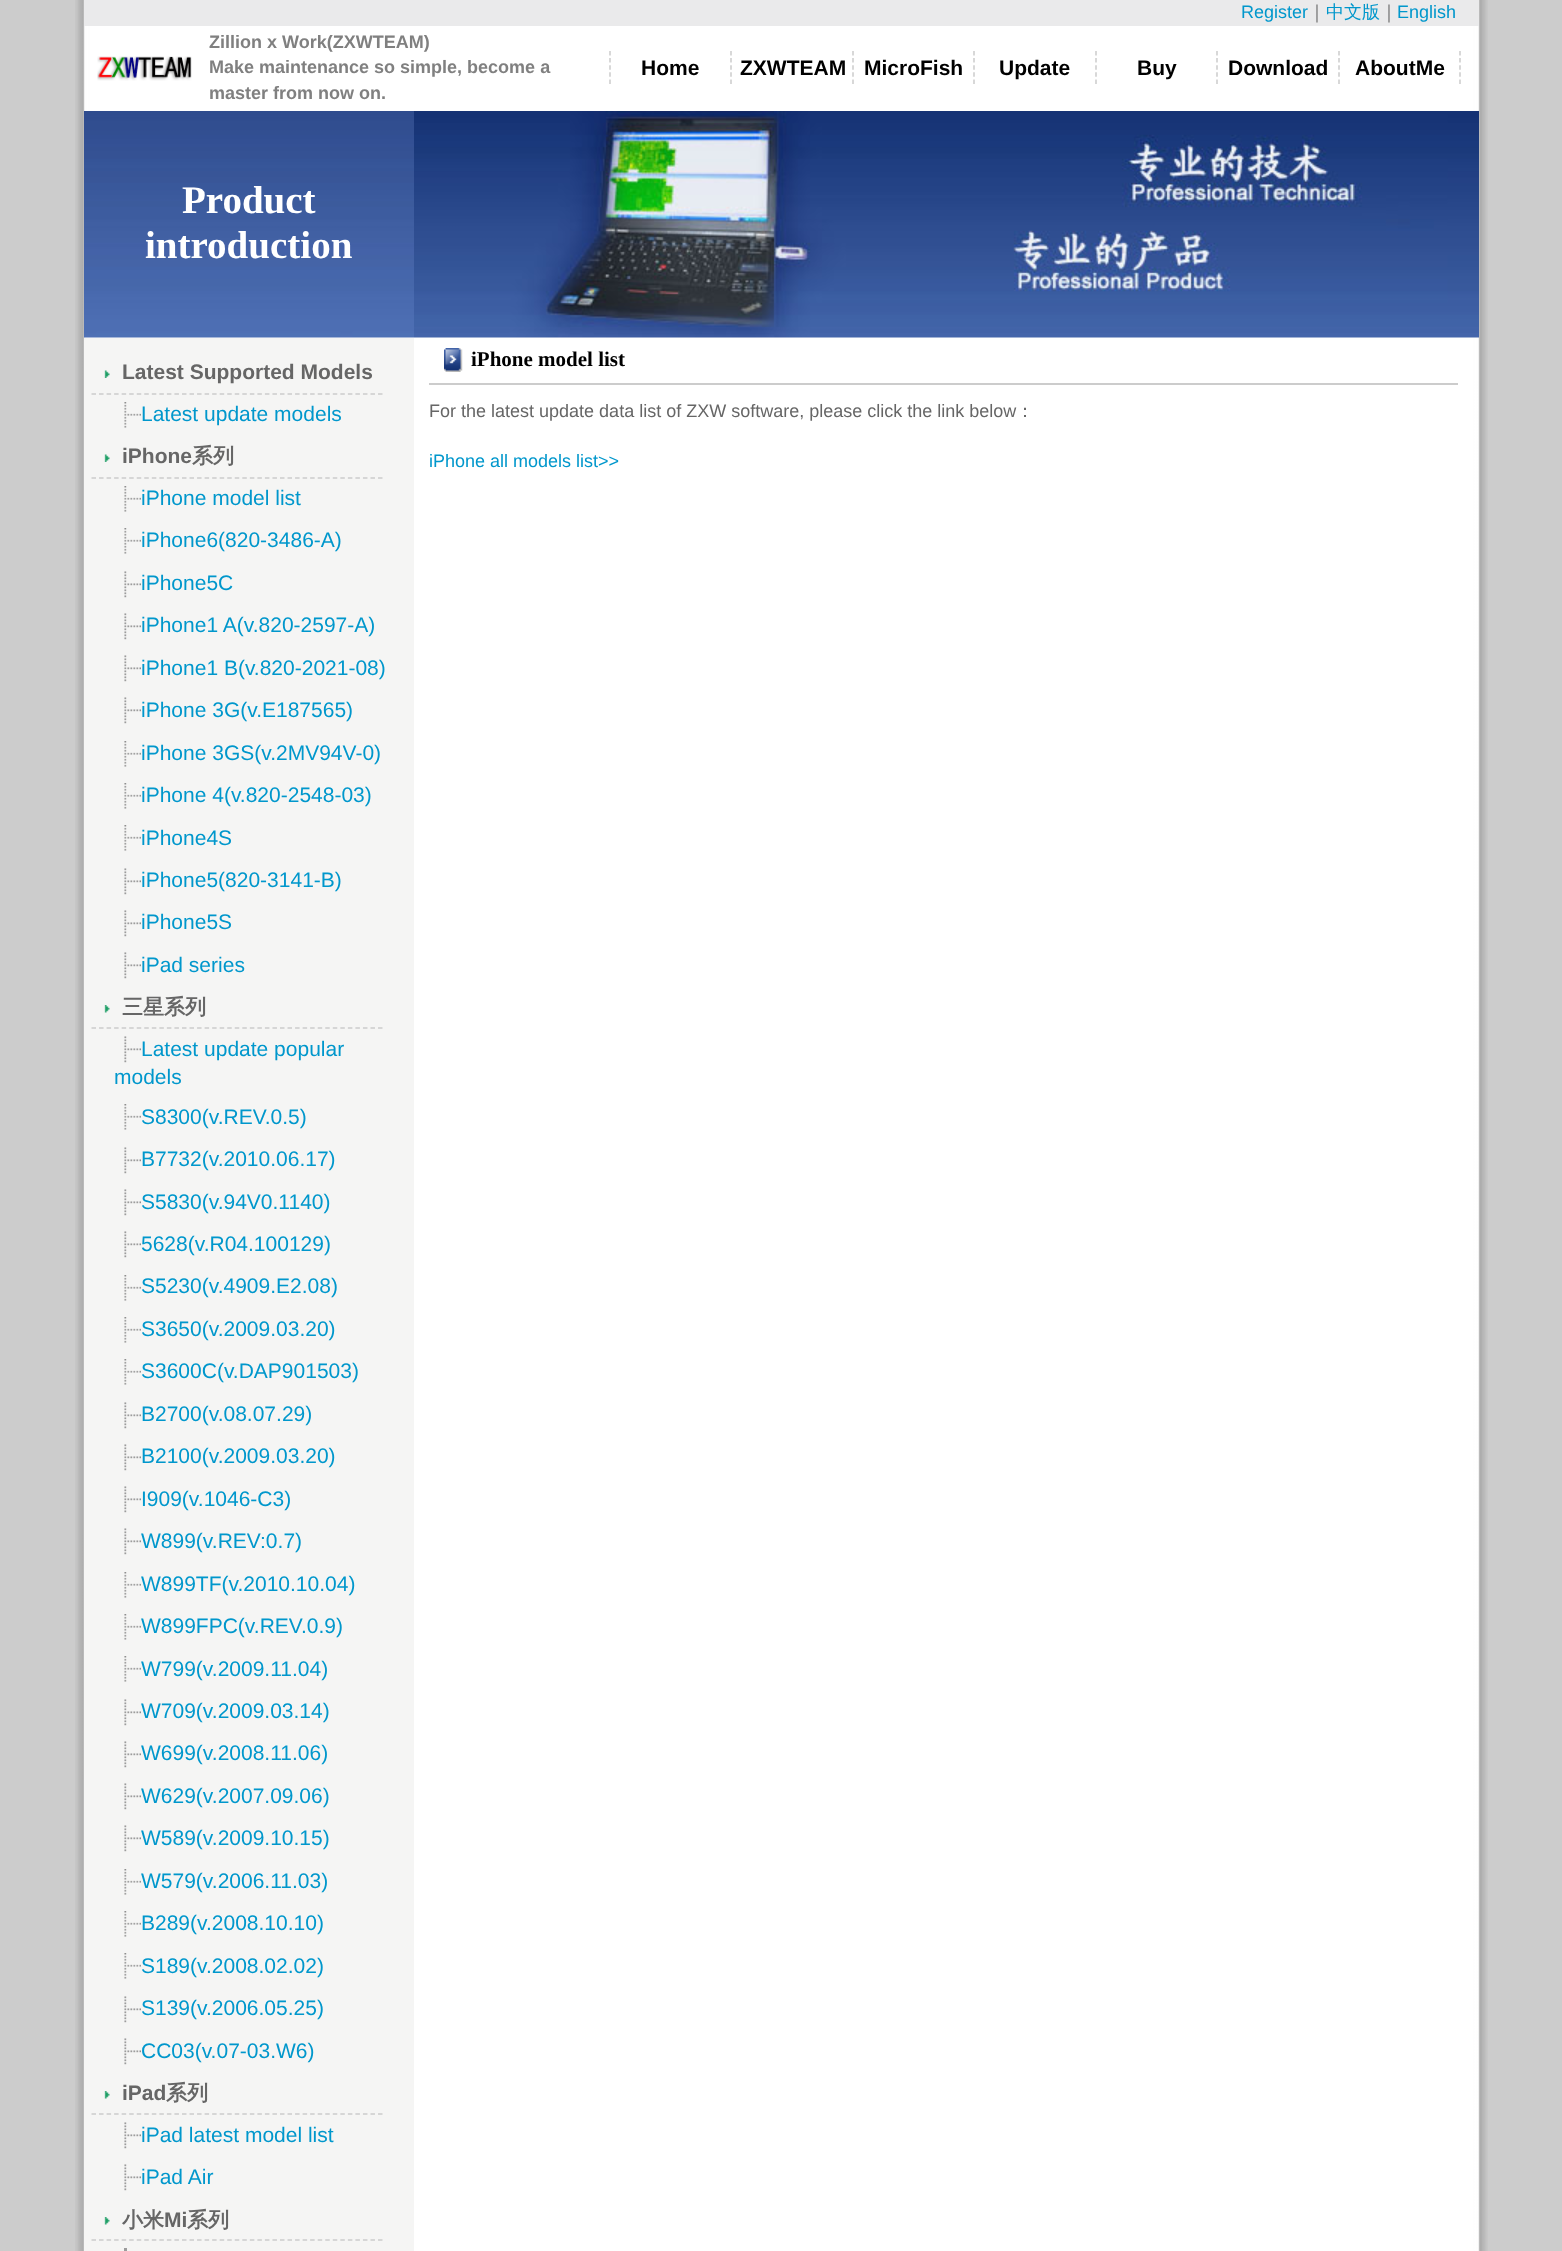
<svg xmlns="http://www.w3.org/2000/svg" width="1562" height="2251">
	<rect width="100%" height="100%" fill="#CCCCCC" />
	<image x="75" y="0" width="1413" height="2251" href="assets/img1.png" />
	<rect x="84" y="0" width="1395" height="26" fill="#EAEAEB" />
	<text x="1241" y="18" font-family="Liberation Sans" font-size="18" fill="#0097CC">Register</text>
	<text x="1308" y="18" font-family="WenQuanYi Zen Hei" font-size="18" font-weight="500" fill="#666666">｜</text>
	<text x="1326" y="18" font-family="WenQuanYi Zen Hei" font-size="18" font-weight="500" fill="#0097CC">中文版</text>
	<text x="1380" y="18" font-family="WenQuanYi Zen Hei" font-size="18" font-weight="500" fill="#666666">｜</text>
	<text x="1397" y="18" font-family="Liberation Sans" font-size="18" fill="#0097CC">English</text>
	<image x="97" y="56" width="95" height="25" href="assets/img2.png" />
	<g font-family="Liberation Sans" font-size="18" font-weight="700" fill="#808080">
		<text x="209" y="48">Zillion x Work(ZXWTEAM)</text>
		<text x="209" y="73">Make maintenance so simple, become a</text>
		<text x="209" y="99">master from now on.</text>
	</g>
	<path d="M610 51V84" fill="none" stroke="#CCCCCC" stroke-width="1.5" stroke-dasharray="4.5 2.62" />
	<text x="641" y="75" font-family="Liberation Sans" font-size="21" font-weight="700" fill="#000000">Home</text>
	<path d="M731 51V84" fill="none" stroke="#CCCCCC" stroke-width="1.5" stroke-dasharray="4.5 2.62" />
	<text x="740" y="75" font-family="Liberation Sans" font-size="21" font-weight="700" fill="#000000">ZXWTEAM</text>
	<path d="M853 51V84" fill="none" stroke="#CCCCCC" stroke-width="1.5" stroke-dasharray="4.5 2.62" />
	<text x="864" y="75" font-family="Liberation Sans" font-size="21" font-weight="700" fill="#000000">MicroFish</text>
	<path d="M974 51V84" fill="none" stroke="#CCCCCC" stroke-width="1.5" stroke-dasharray="4.5 2.62" />
	<text x="999" y="75" font-family="Liberation Sans" font-size="21" font-weight="700" fill="#000000">Update</text>
	<path d="M1096 51V84" fill="none" stroke="#CCCCCC" stroke-width="1.5" stroke-dasharray="4.5 2.62" />
	<text x="1137" y="75" font-family="Liberation Sans" font-size="21" font-weight="700" fill="#000000">Buy</text>
	<path d="M1217 51V84" fill="none" stroke="#CCCCCC" stroke-width="1.5" stroke-dasharray="4.5 2.62" />
	<text x="1228" y="75" font-family="Liberation Sans" font-size="21" font-weight="700" fill="#000000">Download</text>
	<path d="M1460 51V84" fill="none" stroke="#CCCCCC" stroke-width="1.5" stroke-dasharray="4.5 2.62" />
	<path d="M1339 51V84" fill="none" stroke="#CCCCCC" stroke-width="1.5" stroke-dasharray="4.5 2.62" />
	<text x="1355" y="75" font-family="Liberation Sans" font-size="21" font-weight="700" fill="#000000">AboutMe</text>
	<image x="84" y="111" width="330" height="227" href="assets/img3.png" />
	<g font-family="Liberation Serif" font-size="39" font-weight="700" fill="#FFFFFF">
		<text x="182" y="213">Product</text>
		<text x="145" y="258">introduction</text>
	</g>
	<image x="414" y="111" width="1065" height="227" href="assets/img4.png" />
	<rect x="84" y="338" width="330" height="1913" fill="#F5F5F4" />
	<path d="M91.5 394H382.5" fill="none" stroke="#CCCCCC" stroke-width="1.5" stroke-dasharray="4.5 3.04" />
	<image x="104" y="370" width="6" height="8" href="assets/img5.png" />
	<text x="122" y="379" font-family="Liberation Sans" font-size="21" font-weight="700" fill="#666666">Latest Supported Models</text>
	<image x="124" y="402" width="17" height="26" href="assets/img6.png" />
	<text x="141" y="421" font-family="Liberation Sans" font-size="21" fill="#0097CC">Latest update models</text>
	<path d="M91.5 478H382.5" fill="none" stroke="#CCCCCC" stroke-width="1.5" stroke-dasharray="4.5 3.04" />
	<image x="104" y="454" width="6" height="8" href="assets/img5.png" />
	<text x="122" y="463" font-family="Liberation Sans" font-size="21" font-weight="700" fill="#666666">iPhone</text>
	<text x="192" y="463" font-family="WenQuanYi Zen Hei" font-size="21" font-weight="700" fill="#666666">系列</text>
	<image x="124" y="486" width="17" height="26" href="assets/img6.png" />
	<text x="141" y="505" font-family="Liberation Sans" font-size="21" fill="#0097CC">iPhone model list</text>
	<image x="124" y="528" width="17" height="26" href="assets/img6.png" />
	<text x="141" y="547" font-family="Liberation Sans" font-size="21" fill="#0097CC">iPhone6(820-3486-A)</text>
	<image x="124" y="571" width="17" height="27" href="assets/img7.png" />
	<text x="141" y="590" font-family="Liberation Sans" font-size="21" fill="#0097CC">iPhone5C</text>
	<image x="124" y="613" width="17" height="27" href="assets/img7.png" />
	<text x="141" y="632" font-family="Liberation Sans" font-size="21" fill="#0097CC">iPhone1 A(v.820-2597-A)</text>
	<image x="124" y="655" width="17" height="27" href="assets/img7.png" />
	<text x="141" y="675" font-family="Liberation Sans" font-size="21" fill="#0097CC">iPhone1 B(v.820-2021-08)</text>
	<image x="124" y="697" width="17" height="27" href="assets/img7.png" />
	<text x="141" y="717" font-family="Liberation Sans" font-size="21" fill="#0097CC">iPhone 3G(v.E187565)</text>
	<image x="124" y="741" width="17" height="26" href="assets/img6.png" />
	<text x="141" y="760" font-family="Liberation Sans" font-size="21" fill="#0097CC">iPhone 3GS(v.2MV94V-0)</text>
	<image x="124" y="783" width="17" height="26" href="assets/img6.png" />
	<text x="141" y="802" font-family="Liberation Sans" font-size="21" fill="#0097CC">iPhone 4(v.820-2548-03)</text>
	<image x="124" y="825" width="17" height="26" href="assets/img6.png" />
	<text x="141" y="845" font-family="Liberation Sans" font-size="21" fill="#0097CC">iPhone4S</text>
	<image x="124" y="868" width="17" height="27" href="assets/img7.png" />
	<text x="141" y="887" font-family="Liberation Sans" font-size="21" fill="#0097CC">iPhone5(820-3141-B)</text>
	<image x="124" y="910" width="17" height="27" href="assets/img7.png" />
	<text x="141" y="929" font-family="Liberation Sans" font-size="21" fill="#0097CC">iPhone5S</text>
	<image x="124" y="952" width="17" height="27" href="assets/img7.png" />
	<text x="141" y="972" font-family="Liberation Sans" font-size="21" fill="#0097CC">iPad series</text>
	<path d="M91.5 1028H382.5" fill="none" stroke="#CCCCCC" stroke-width="1.5" stroke-dasharray="4.5 3.04" />
	<image x="104" y="1005" width="6" height="8" href="assets/img8.png" />
	<text x="122" y="1014" font-family="WenQuanYi Zen Hei" font-size="21" font-weight="700" fill="#666666">三星系列</text>
	<image x="124" y="1036" width="17" height="27" href="assets/img7.png" />
	<g font-family="Liberation Sans" font-size="21" fill="#0097CC">
		<text x="141" y="1056">Latest update popular</text>
		<text x="114" y="1084">models</text>
	</g>
	<image x="124" y="1104" width="17" height="26" href="assets/img6.png" />
	<text x="141" y="1124" font-family="Liberation Sans" font-size="21" fill="#0097CC">S8300(v.REV.0.5)</text>
	<image x="124" y="1147" width="17" height="27" href="assets/img7.png" />
	<text x="141" y="1166" font-family="Liberation Sans" font-size="21" fill="#0097CC">B7732(v.2010.06.17)</text>
	<image x="124" y="1189" width="17" height="27" href="assets/img7.png" />
	<text x="141" y="1209" font-family="Liberation Sans" font-size="21" fill="#0097CC">S5830(v.94V0.1140)</text>
	<image x="124" y="1231" width="17" height="27" href="assets/img7.png" />
	<text x="141" y="1251" font-family="Liberation Sans" font-size="21" fill="#0097CC">5628(v.R04.100129)</text>
	<image x="124" y="1275" width="17" height="26" href="assets/img6.png" />
	<text x="141" y="1293" font-family="Liberation Sans" font-size="21" fill="#0097CC">S5230(v.4909.E2.08)</text>
	<image x="124" y="1317" width="17" height="26" href="assets/img6.png" />
	<text x="141" y="1336" font-family="Liberation Sans" font-size="21" fill="#0097CC">S3650(v.2009.03.20)</text>
	<image x="124" y="1359" width="17" height="26" href="assets/img6.png" />
	<text x="141" y="1378" font-family="Liberation Sans" font-size="21" fill="#0097CC">S3600C(v.DAP901503)</text>
	<image x="124" y="1402" width="17" height="27" href="assets/img7.png" />
	<text x="141" y="1421" font-family="Liberation Sans" font-size="21" fill="#0097CC">B2700(v.08.07.29)</text>
	<image x="124" y="1444" width="17" height="27" href="assets/img7.png" />
	<text x="141" y="1463" font-family="Liberation Sans" font-size="21" fill="#0097CC">B2100(v.2009.03.20)</text>
	<image x="124" y="1486" width="17" height="27" href="assets/img7.png" />
	<text x="141" y="1506" font-family="Liberation Sans" font-size="21" fill="#0097CC">I909(v.1046-C3)</text>
	<image x="124" y="1528" width="17" height="27" href="assets/img7.png" />
	<text x="141" y="1548" font-family="Liberation Sans" font-size="21" fill="#0097CC">W899(v.REV:0.7)</text>
	<image x="124" y="1572" width="17" height="26" href="assets/img6.png" />
	<text x="141" y="1591" font-family="Liberation Sans" font-size="21" fill="#0097CC">W899TF(v.2010.10.04)</text>
	<image x="124" y="1614" width="17" height="26" href="assets/img6.png" />
	<text x="141" y="1633" font-family="Liberation Sans" font-size="21" fill="#0097CC">W899FPC(v.REV.0.9)</text>
	<image x="124" y="1656" width="17" height="26" href="assets/img6.png" />
	<text x="141" y="1676" font-family="Liberation Sans" font-size="21" fill="#0097CC">W799(v.2009.11.04)</text>
	<image x="124" y="1699" width="17" height="27" href="assets/img7.png" />
	<text x="141" y="1718" font-family="Liberation Sans" font-size="21" fill="#0097CC">W709(v.2009.03.14)</text>
	<image x="124" y="1741" width="17" height="27" href="assets/img7.png" />
	<text x="141" y="1760" font-family="Liberation Sans" font-size="21" fill="#0097CC">W699(v.2008.11.06)</text>
	<image x="124" y="1783" width="17" height="27" href="assets/img7.png" />
	<text x="141" y="1803" font-family="Liberation Sans" font-size="21" fill="#0097CC">W629(v.2007.09.06)</text>
	<image x="124" y="1825" width="17" height="27" href="assets/img7.png" />
	<text x="141" y="1845" font-family="Liberation Sans" font-size="21" fill="#0097CC">W589(v.2009.10.15)</text>
	<image x="124" y="1869" width="17" height="26" href="assets/img6.png" />
	<text x="141" y="1888" font-family="Liberation Sans" font-size="21" fill="#0097CC">W579(v.2006.11.03)</text>
	<image x="124" y="1911" width="17" height="26" href="assets/img6.png" />
	<text x="141" y="1930" font-family="Liberation Sans" font-size="21" fill="#0097CC">B289(v.2008.10.10)</text>
	<image x="124" y="1953" width="17" height="26" href="assets/img6.png" />
	<text x="141" y="1973" font-family="Liberation Sans" font-size="21" fill="#0097CC">S189(v.2008.02.02)</text>
	<image x="124" y="1996" width="17" height="27" href="assets/img7.png" />
	<text x="141" y="2015" font-family="Liberation Sans" font-size="21" fill="#0097CC">S139(v.2006.05.25)</text>
	<image x="124" y="2038" width="17" height="27" href="assets/img7.png" />
	<text x="141" y="2058" font-family="Liberation Sans" font-size="21" fill="#0097CC">CC03(v.07-03.W6)</text>
	<path d="M91.5 2114H382.5" fill="none" stroke="#CCCCCC" stroke-width="1.5" stroke-dasharray="4.5 3.04" />
	<image x="104" y="2091" width="6" height="8" href="assets/img8.png" />
	<text x="122" y="2100" font-family="Liberation Sans" font-size="21" font-weight="700" fill="#666666">iPad</text>
	<text x="166" y="2100" font-family="WenQuanYi Zen Hei" font-size="21" font-weight="700" fill="#666666">系列</text>
	<image x="124" y="2122" width="17" height="27" href="assets/img7.png" />
	<text x="141" y="2142" font-family="Liberation Sans" font-size="21" fill="#0097CC">iPad latest model list</text>
	<image x="124" y="2164" width="17" height="27" href="assets/img7.png" />
	<text x="141" y="2184" font-family="Liberation Sans" font-size="21" fill="#0097CC">iPad Air</text>
	<path d="M91.5 2240H382.5" fill="none" stroke="#CCCCCC" stroke-width="1.5" stroke-dasharray="4.5 3.04" />
	<image x="104" y="2217" width="6" height="8" href="assets/img8.png" />
	<text x="122" y="2227" font-family="WenQuanYi Zen Hei" font-size="21" font-weight="700" fill="#666666">小米</text>
	<text x="164" y="2227" font-family="Liberation Sans" font-size="21" font-weight="700" fill="#666666">Mi</text>
	<text x="187" y="2227" font-family="WenQuanYi Zen Hei" font-size="21" font-weight="700" fill="#666666">系列</text>
	<rect x="124" y="2248" width="3" height="3" fill="#9C9C9C" />
	<rect x="429" y="383" width="1029" height="2" fill="#CCCCCC" />
	<image x="444" y="348" width="19" height="24" href="assets/img9.png" />
	<text x="471" y="366" font-family="Liberation Serif" font-size="21" font-weight="700" fill="#000000">iPhone model list</text>
	<text x="429" y="417" font-family="Liberation Sans" font-size="18" fill="#666666">For the latest update data list of ZXW software, please click the link below</text>
	<text x="1016" y="417" font-family="WenQuanYi Zen Hei" font-size="18" font-weight="500" fill="#666666">：</text>
	<text x="429" y="467" font-family="Liberation Sans" font-size="18" fill="#0097CC">iPhone all models list&gt;&gt;</text>
</svg>
